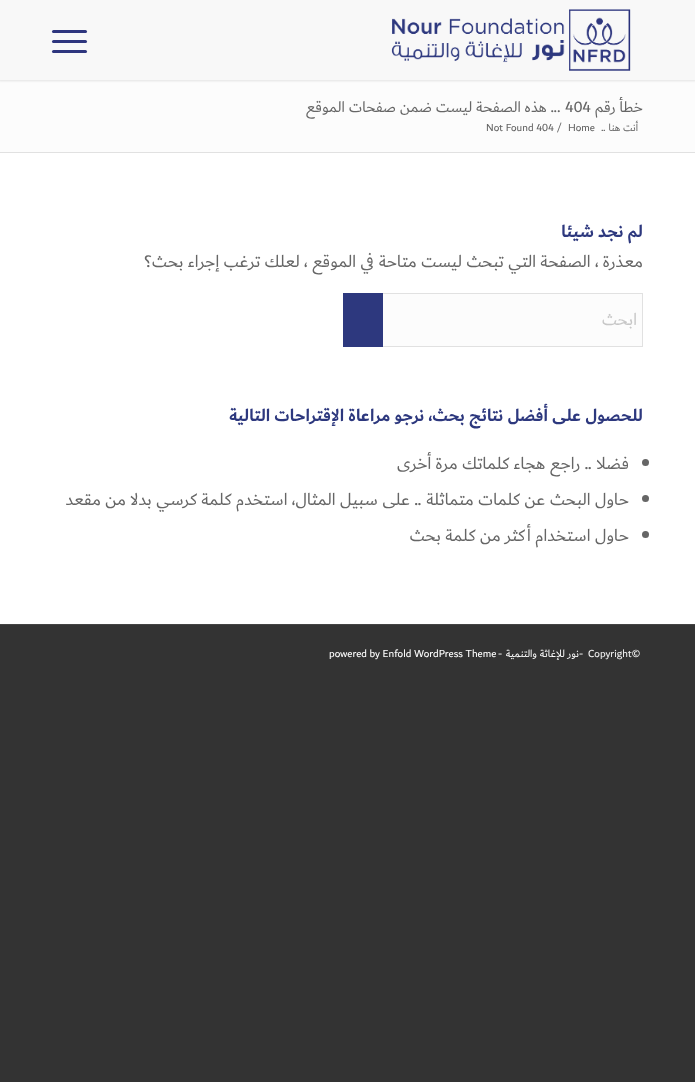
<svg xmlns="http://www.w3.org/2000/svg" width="695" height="1082">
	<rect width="100%" height="100%" fill="#333333" />
	<rect x="0" y="80" width="695" height="72" fill="#FCFCFC" />
	<rect x="-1" y="-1" width="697" height="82" fill="#000000" fill-opacity="0.1" filter="blur(1px)" />
	<rect x="0" y="0" width="695" height="80" fill="#F8F8F8" />
	<image x="391" y="9" width="240" height="62" href="assets/img1.png" />
	<rect x="52" y="40" width="35" height="3" rx="1.5" fill="#2E367E" />
	<rect x="52" y="30" width="35" height="3" rx="1.5" fill="#2E367E" />
	<rect x="52" y="50" width="35" height="3" rx="1.5" fill="#2E367E" />
	<text x="643" y="112" font-family="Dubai" font-size="16" direction="rtl" fill="#666666">خطأ رقم</text>
	<text x="565" y="112" font-family="Dubai" font-size="16" fill="#666666">404</text>
	<text x="561" y="112" font-family="Dubai" font-size="16" direction="rtl" fill="#666666">... هذه الصفحة ليست ضمن صفحات الموقع</text>
	<text x="638" y="131" font-family="Dubai" font-size="11" direction="rtl" fill="#666666">أنت هنا ..</text>
	<g font-family="Dubai" font-size="11" fill="#666666">
		<text x="568" y="131">Home</text>
		<text x="486" y="131">Not Found 404 /</text>
	</g>
	<rect x="0" y="153" width="695" height="471" fill="#FFFFFF" />
	<rect x="0" y="152" width="695" height="1" fill="#E1E1E1" />
	<text x="643" y="237" font-family="Dubai" font-size="18" font-weight="700" direction="rtl" fill="#2D387E">لم نجد شيئا</text>
	<g font-family="Dubai" font-size="18" direction="rtl" fill="#666666">
		<text x="643" y="267">معذرة ، الصفحة التي تبحث ليست متاحة</text>
		<text x="374" y="267">في الموقع ، لعلك ترغب إجراء بحث؟</text>
	</g>
	<rect x="383" y="294" width="259" height="52" fill="#FCFCFC" />
	<rect x="343.5" y="293.5" width="299" height="53" fill="none" stroke="#E1E1E1" />
	<text x="637" y="325" font-family="Dubai" font-size="18" direction="rtl" fill="#C7C7C7">ابحث</text>
	<rect x="343" y="293" width="40" height="54" fill="#2D387E" />
	<image x="619" y="319" width="9" height="3" href="assets/img2.png" />
	<text x="643" y="421" font-family="Dubai" font-size="18" font-weight="700" direction="rtl" fill="#2D387E">للحصول على أفضل نتائج بحث، نرجو مراعاة الإقتراحات التالية</text>
	<circle cx="645.5" cy="462.5" r="3.5" fill="#666666" />
	<text x="629" y="469" font-family="Dubai" font-size="18" direction="rtl" fill="#666666">فضلا .. راجع هجاء كلماتك مرة أخرى</text>
	<circle cx="645.5" cy="498.5" r="3.5" fill="#666666" />
	<text x="629" y="505" font-family="Dubai" font-size="18" direction="rtl" fill="#666666">حاول البحث عن كلمات متماثلة .. على سبيل المثال، استخدم كلمة كرسي بدلا من مقعد</text>
	<circle cx="645.5" cy="534.5" r="3.5" fill="#666666" />
	<text x="629" y="541" font-family="Dubai" font-size="18" direction="rtl" fill="#666666">حاول استخدام أكثر من كلمة بحث</text>
	<rect x="0" y="624" width="695" height="1" fill="#444444" />
	<g font-family="Dubai" font-size="11" fill="#EEEEEE">
		<text x="588" y="657">Copyright©</text>
		<text x="579" y="657">-</text>
	</g>
	<text x="579" y="657" font-family="Dubai" font-size="11" direction="rtl" fill="#FFFFFF">نور للإغاثة والتنمية</text>
	<text x="498" y="657" font-family="Dubai" font-size="11" fill="#EEEEEE">-</text>
	<text x="329" y="657" font-family="Dubai" font-size="11" fill="#FFFFFF">powered by Enfold WordPress Theme</text>
</svg>
